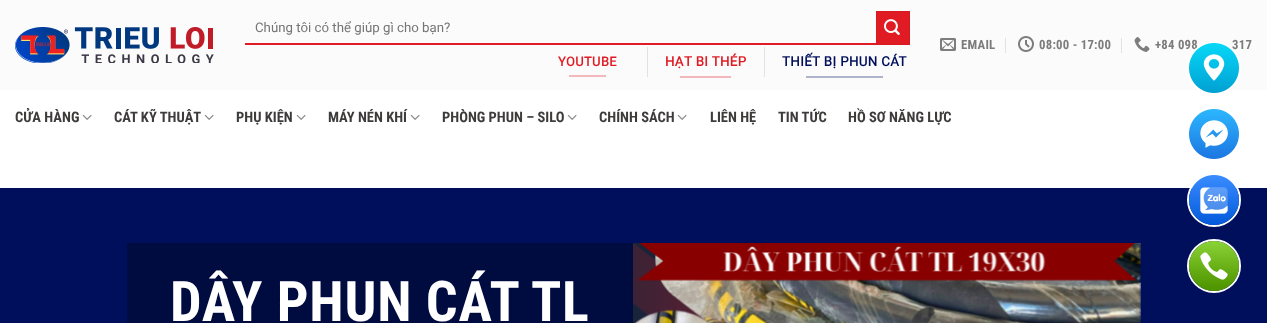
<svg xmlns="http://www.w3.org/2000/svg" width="1267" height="323">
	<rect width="100%" height="100%" fill="#FFFFFF" />
	<rect x="0" y="0" width="1267" height="90" fill="#FBFBFB" />
	<image x="15" y="27" width="199" height="36" href="assets/img1.png" />
	<rect x="245" y="43" width="631" height="2" fill="#E01B24" />
	<text x="255" y="32" font-family="Roboto" font-size="13.25" fill="#757575">Chúng tôi có thể giúp gì cho bạn?</text>
	<rect x="876.5" y="11.5" width="33" height="33" fill="#E01B24" stroke="#D51A22" />
	<image x="884" y="19" width="16" height="16" href="assets/img2.png" />
	<text x="558" y="66" font-family="Roboto" font-size="12.75" font-weight="700" letter-spacing="0.5" fill="#E01B24">YOUTUBE</text>
	<rect x="569" y="75" width="37" height="2" fill="#F3B8BB" />
	<rect x="647" y="47" width="1" height="30" fill="#E2E2E2" />
	<text x="665" y="66" font-family="Roboto" font-size="13.25" font-weight="700" letter-spacing="0.4" fill="#E01B24">HẠT BI THÉP</text>
	<rect x="680" y="76" width="51" height="2" fill="#F3B8BB" />
	<rect x="764" y="47" width="1" height="30" fill="#E2E2E2" />
	<text x="782" y="66" font-family="Roboto" font-size="13.25" font-weight="700" letter-spacing="0.4" fill="#000F5C">THIẾT BỊ PHUN CÁT</text>
	<rect x="806" y="76" width="77" height="2" fill="#B0B4CB" />
	<image x="940" y="38" width="16" height="13" href="assets/img3.png" />
	<text x="961" y="49" font-family="Roboto Condensed" font-size="12.75" font-weight="700" letter-spacing="0.25" fill="#7C7C7C">EMAIL</text>
	<rect x="1005" y="38" width="1" height="15" fill="#E2E2E2" />
	<image x="1018" y="36" width="16" height="16" href="assets/img4.png" />
	<text x="1039" y="49" font-family="Roboto Condensed" font-size="12.75" font-weight="700" letter-spacing="0.25" fill="#7C7C7C">08:00 - 17:00</text>
	<rect x="1121" y="38" width="1" height="15" fill="#E2E2E2" />
	<image x="1134" y="37" width="16" height="15" href="assets/img5.png" />
	<g font-family="Roboto Condensed" font-size="12.75" font-weight="700" letter-spacing="0.25" fill="#7C7C7C">
		<text x="1155" y="49">+84 098</text>
		<text x="1232" y="49">317</text>
	</g>
	<text x="15" y="122" font-family="Roboto Condensed" font-size="14.5" font-weight="700" fill="#3E3B3B">CỬA HÀNG</text>
	<image x="82" y="114" width="10" height="6" href="assets/img6.png" />
	<text x="114" y="122" font-family="Roboto Condensed" font-size="14.5" font-weight="700" fill="#3E3B3B">CÁT KỸ THUẬT</text>
	<image x="204" y="114" width="10" height="6" href="assets/img6.png" />
	<text x="236" y="122" font-family="Roboto Condensed" font-size="14.5" font-weight="700" fill="#3E3B3B">PHỤ KIỆN</text>
	<image x="296" y="114" width="10" height="6" href="assets/img6.png" />
	<text x="328" y="122" font-family="Roboto Condensed" font-size="14.5" font-weight="700" fill="#3E3B3B">MÁY NÉN KHÍ</text>
	<image x="410" y="114" width="10" height="6" href="assets/img6.png" />
	<text x="442" y="122" font-family="Roboto Condensed" font-size="14.5" font-weight="700" fill="#3E3B3B">PHÒNG PHUN – SILO</text>
	<image x="567" y="114" width="10" height="6" href="assets/img6.png" />
	<text x="599" y="122" font-family="Roboto Condensed" font-size="14.5" font-weight="700" fill="#3E3B3B">CHÍNH SÁCH</text>
	<image x="677" y="114" width="10" height="6" href="assets/img6.png" />
	<g font-family="Roboto Condensed" font-size="14.5" font-weight="700" fill="#3E3B3B">
		<text x="710" y="122">LIÊN HỆ</text>
		<text x="778" y="122">TIN TỨC</text>
		<text x="848" y="122">HỒ SƠ NĂNG LỰC</text>
	</g>
	<rect x="0" y="188" width="1267" height="135" fill="#000F5C" />
	<rect x="127" y="243" width="506" height="80" fill="#000B40" />
	<text x="170" y="321" font-family="Roboto Condensed" font-size="56" font-weight="700" letter-spacing="0.75" fill="#FFFFFF">DÂY PHUN CÁT TL</text>
	<image x="633" y="243" width="508" height="80" href="assets/img7.png" />
	<circle cx="1214" cy="68" r="26" fill="none" stroke="#FFFFFF" stroke-width="2" />
	<image x="1189" y="43" width="50" height="50" href="assets/img8.png" />
	<image x="1189" y="109" width="50" height="50" href="assets/img9.png" />
	<circle cx="1214" cy="200" r="26" fill="none" stroke="#FFFFFF" stroke-width="2" />
	<image x="1189" y="175" width="50" height="50" href="assets/img10.png" />
	<circle cx="1214" cy="266" r="26" fill="none" stroke="#FFFFFF" stroke-width="2" />
	<image x="1189" y="241" width="50" height="50" href="assets/img11.png" />
</svg>
